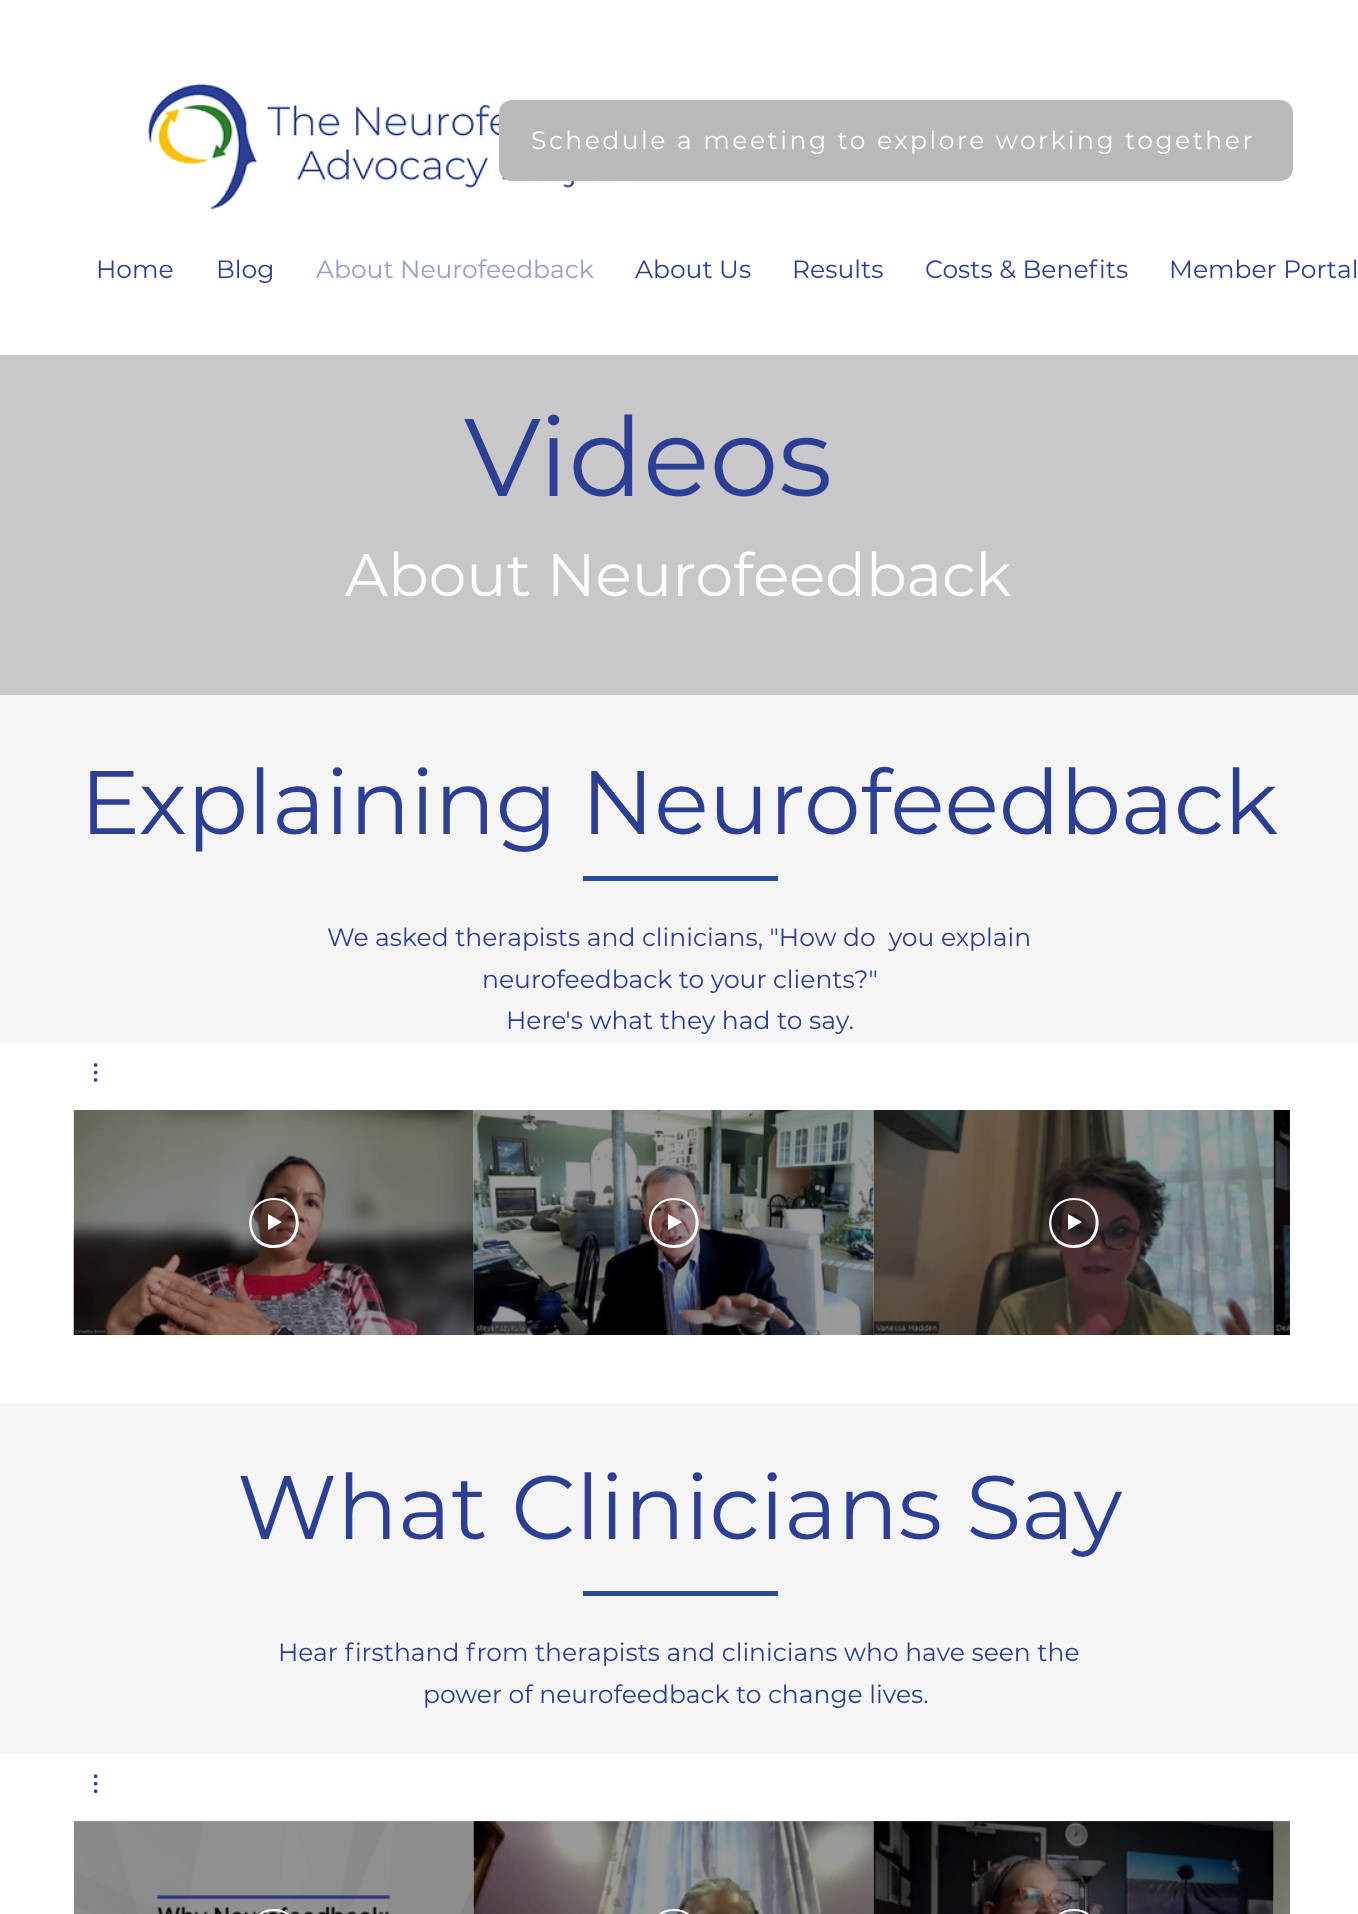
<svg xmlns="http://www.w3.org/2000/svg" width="1358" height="1914">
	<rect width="100%" height="100%" fill="#FFFFFF" />
	<image x="145" y="81" width="515" height="129" href="assets/img1.png" />
	<rect x="499" y="100" width="794" height="81" rx="13" fill="#B9B9B9" />
	<text x="531" y="149" font-family="Montserrat" font-size="25" letter-spacing="2.5" fill="#FFFFFF">Schedule a meeting to explore working together</text>
	<g font-family="Montserrat" font-size="25" fill="#2C3F94">
		<text x="96" y="278">Home</text>
		<text x="216" y="278">Blog</text>
	</g>
	<text x="316" y="278" font-family="Montserrat" font-size="25" fill="#969FCA">About Neurofeedback</text>
	<g font-family="Montserrat" font-size="25" fill="#2C3F94">
		<text x="635" y="278">About Us</text>
		<text x="792" y="278">Results</text>
		<text x="925" y="278">Costs &amp; Benefits</text>
		<text x="1169" y="278">Member Portal</text>
	</g>
	<rect x="0" y="355" width="1358" height="340" fill="#C8C8CA" />
	<text x="464" y="496" font-family="Montserrat" font-size="110" fill="#2C3F94">Videos</text>
	<text x="345" y="596" font-family="Montserrat" font-size="60" fill="#FFFFFF">About Neurofeedback</text>
	<rect x="0" y="695" width="1358" height="348" fill="#F5F5F6" />
	<text x="80" y="834" font-family="Montserrat" font-size="90" fill="#2C3F94">Explaining Neurofeedback</text>
	<rect x="583" y="876" width="195" height="5" fill="#274C9A" />
	<g font-family="Montserrat" font-size="25" fill="#2C3F94">
		<text x="327" y="946" xml:space="preserve">We asked therapists and clinicians, "How do  you explain</text>
		<text x="482" y="988">neurofeedback to your clients?"</text>
		<text x="506" y="1029">Here's what they had to say.</text>
	</g>
	<image x="94" y="1063" width="4" height="19" href="assets/img2.png" />
	<image x="73" y="1110" width="401" height="225" href="assets/img3.png" />
	<image x="73" y="1110" width="401" height="225" href="assets/img4.png" />
	<path d="M274 1245C303 1245 303 1200 274 1200C244 1200 244 1245 274 1245ZM274 1248C241 1248 241 1198 274 1198C307 1198 307 1248 274 1248ZM282 1222L268 1214V1230Z" fill="#FFFFFF" />
	<image x="473" y="1110" width="401" height="225" href="assets/img5.png" />
	<image x="473" y="1110" width="401" height="225" href="assets/img6.png" />
	<path d="M674 1245C703 1245 703 1200 674 1200C644 1200 644 1245 674 1245ZM674 1248C641 1248 641 1198 674 1198C707 1198 707 1248 674 1248ZM682 1222L668 1214V1230Z" fill="#FFFFFF" />
	<image x="873" y="1110" width="401" height="225" href="assets/img7.png" />
	<image x="873" y="1110" width="401" height="225" href="assets/img8.png" />
	<path d="M1074 1245C1103 1245 1103 1200 1074 1200C1044 1200 1044 1245 1074 1245ZM1074 1248C1041 1248 1041 1198 1074 1198C1107 1198 1107 1248 1074 1248ZM1082 1222L1068 1214V1230Z" fill="#FFFFFF" />
	<image x="1273" y="1110" width="17" height="225" href="assets/img9.png" />
	<image x="1273" y="1110" width="1" height="225" href="assets/img10.png" />
	<rect x="0" y="1403" width="1358" height="351" fill="#F5F5F6" />
	<text x="237" y="1539" font-family="Montserrat" font-size="90" fill="#2C3F94">What Clinicians Say</text>
	<rect x="583" y="1591" width="195" height="5" fill="#274C9A" />
	<g font-family="Montserrat" font-size="25" fill="#2C3F94">
		<text x="278" y="1661">Hear firsthand from therapists and clinicians who have seen the</text>
		<text x="423" y="1703">power of neurofeedback to change lives.</text>
	</g>
	<image x="94" y="1774" width="4" height="20" href="assets/img11.png" />
	<image x="73" y="1821" width="401" height="93" href="assets/img12.png" />
	<image x="74" y="1821" width="400" height="93" href="assets/img13.png" />
	<path d="M274 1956C303 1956 303 1911 274 1911C244 1911 244 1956 274 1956ZM274 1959C241 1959 241 1909 274 1909C307 1909 307 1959 274 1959ZM282 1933L268 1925V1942Z" fill="#FFFFFF" />
	<image x="473" y="1821" width="401" height="93" href="assets/img14.png" />
	<image x="473" y="1821" width="401" height="93" href="assets/img15.png" />
	<path d="M674 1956C703 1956 703 1911 674 1911C644 1911 644 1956 674 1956ZM674 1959C641 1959 641 1909 674 1909C707 1909 707 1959 674 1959ZM682 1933L668 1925V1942Z" fill="#FFFFFF" />
	<image x="873" y="1821" width="401" height="93" href="assets/img16.png" />
	<image x="873" y="1821" width="401" height="93" href="assets/img17.png" />
	<path d="M1074 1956C1103 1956 1103 1911 1074 1911C1044 1911 1044 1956 1074 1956ZM1074 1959C1041 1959 1041 1909 1074 1909C1107 1909 1107 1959 1074 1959ZM1082 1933L1068 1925V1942Z" fill="#FFFFFF" />
	<image x="1273" y="1821" width="17" height="93" href="assets/img18.png" />
	<image x="1273" y="1821" width="17" height="93" href="assets/img19.png" />
</svg>
